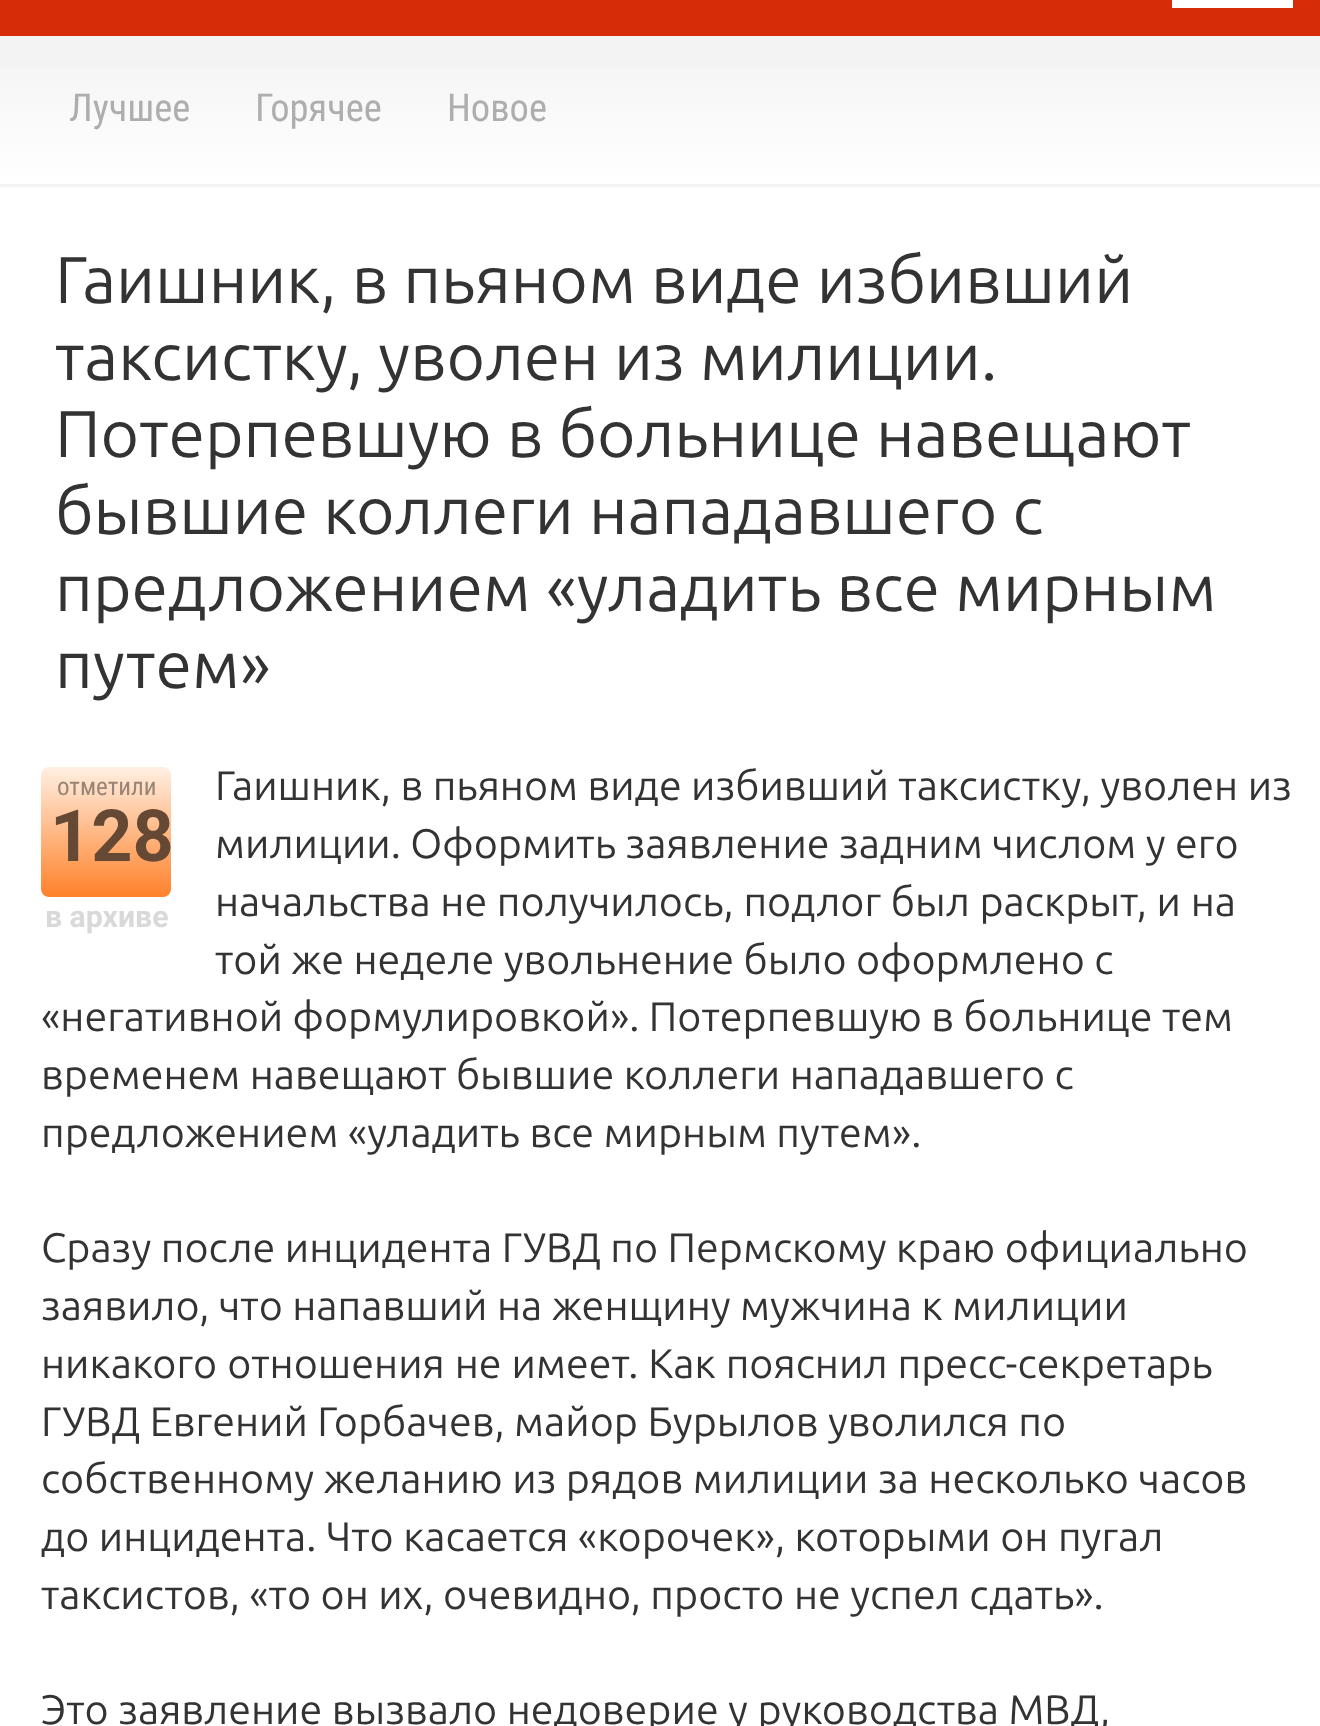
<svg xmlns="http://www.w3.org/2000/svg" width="1320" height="1726">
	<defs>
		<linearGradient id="g1" gradientUnits="userSpaceOnUse" x1="660" y1="36" x2="660" y2="184"><stop offset="0" stop-color="#F3F3F3" /><stop offset="1" stop-color="#FFFFFF" /></linearGradient>
		<linearGradient id="g2" gradientUnits="userSpaceOnUse" x1="106" y1="767" x2="106" y2="897"><stop offset="0" stop-color="#FFF0E2" /><stop offset="1" stop-color="#FF812A" /></linearGradient>
	</defs>
	<rect width="100%" height="100%" fill="#F3F3F3" />
	<rect x="0" y="0" width="1320" height="36" fill="#D72C08" />
	<rect x="1172" y="0" width="121" height="8" fill="#FFFFFF" />
	<rect x="0" y="67" width="1320" height="117" fill="url(#g1)" />
	<g font-family="Roboto Condensed" font-size="38.5" fill="#AEAEAE">
		<text x="69" y="121">Лучшее</text>
		<text x="255" y="121">Горячее</text>
		<text x="447" y="121">Новое</text>
	</g>
	<rect x="0" y="187" width="1320" height="1539" fill="#FFFFFF" />
	<g font-family="Ubuntu" font-size="66" fill="#333333">
		<text x="55" y="303">Гаишник, в пьяном виде избивший</text>
		<text x="55" y="380">таксистку, уволен из милиции.</text>
		<text x="55" y="457">Потерпевшую в больнице навещают</text>
		<text x="55" y="534">бывшие коллеги нападавшего с</text>
		<text x="55" y="611">предложением «уладить все мирным</text>
		<text x="55" y="688">путем»</text>
	</g>
	<g font-family="Ubuntu" font-size="41.25" fill="#333333">
		<text x="215" y="800">Гаишник, в пьяном виде избивший таксистку, уволен из</text>
		<text x="215" y="858">милиции. Оформить заявление задним числом у его</text>
		<text x="215" y="916" word-spacing="0.25">начальства не получилось, подлог был раскрыт, и на</text>
		<text x="215" y="974">той же неделе увольнение было оформлено с</text>
		<text x="41" y="1031">«негативной формулировкой». Потерпевшую в больнице тем</text>
		<text x="41" y="1089">временем навещают бывшие коллеги нападавшего с</text>
		<text x="41" y="1147">предложением «уладить все мирным путем».</text>
		<text x="41" y="1262">Сразу после инцидента ГУВД по Пермскому краю официально</text>
		<text x="41" y="1320">заявило, что напавший на женщину мужчина к милиции</text>
		<text x="41" y="1378" word-spacing="0.5">никакого отношения не имеет. Как пояснил пресс-секретарь</text>
		<text x="41" y="1436">ГУВД Евгений Горбачев, майор Бурылов уволился по</text>
		<text x="41" y="1493">собственному желанию из рядов милиции за несколько часов</text>
		<text x="41" y="1551">до инцидента. Что касается «корочек», которыми он пугал</text>
		<text x="41" y="1609">таксистов, «то он их, очевидно, просто не успел сдать».</text>
		<text x="41" y="1724">Это заявление вызвало недоверие у руководства МВД,</text>
	</g>
	<rect x="41" y="767" width="130" height="130" rx="8" fill="url(#g2)" />
	<text x="57" y="795" font-family="Roboto Condensed" font-size="25" fill="#998576">отметили</text>
	<text x="50" y="861" font-family="Roboto" font-size="72" font-weight="700" fill="#664934">128</text>
	<text x="45" y="927" font-family="Roboto" font-size="30.25" font-weight="700" fill="#D9D9D9">в архиве</text>
</svg>
